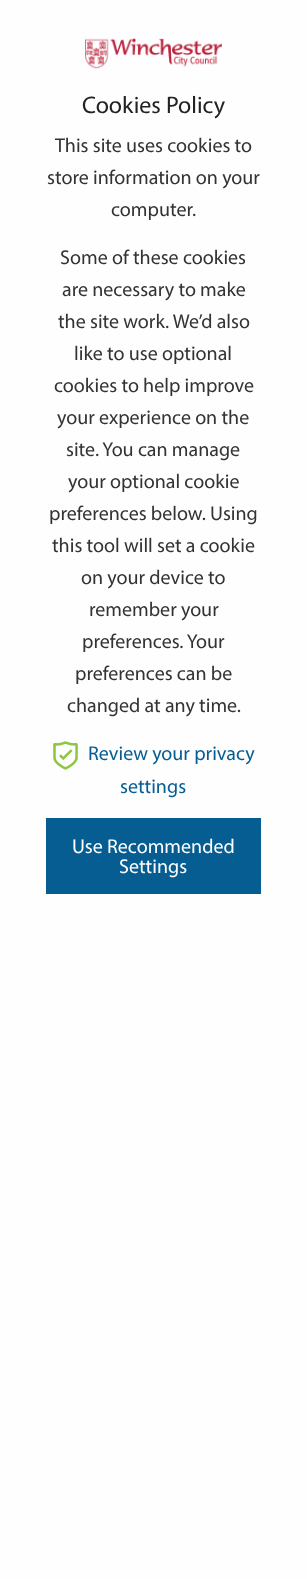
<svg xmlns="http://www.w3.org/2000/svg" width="307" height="1579">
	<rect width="100%" height="100%" fill="#FEFEFE" />
	<image x="85" y="38" width="137" height="31" href="assets/img1.png" />
	<text x="82" y="113" font-family="Myriad" font-size="24" fill="#222222">Cookies Policy</text>
	<g font-family="Myriad" font-size="20" fill="#333333">
		<text x="55" y="152">This site uses cookies to</text>
		<text x="47" y="184">store information on your</text>
		<text x="111" y="216">computer.</text>
		<text x="60" y="264">Some of these cookies</text>
		<text x="62" y="296">are necessary to make</text>
		<text x="58" y="328">the site work. We’d also</text>
		<text x="74" y="360">like to use optional</text>
		<text x="54" y="392">cookies to help improve</text>
		<text x="57" y="424">your experience on the</text>
		<text x="66" y="456">site. You can manage</text>
		<text x="68" y="488">your optional cookie</text>
		<text x="49" y="520">preferences below. Using</text>
		<text x="52" y="552">this tool will set a cookie</text>
		<text x="81" y="584">on your device to</text>
		<text x="89" y="616">remember your</text>
		<text x="82" y="648">preferences. Your</text>
		<text x="75" y="680">preferences can be</text>
		<text x="67" y="712">changed at any time.</text>
	</g>
	<image x="53" y="741" width="25" height="29" href="assets/img2.png" />
	<g font-family="Myriad" font-size="20" fill="#065D92">
		<text x="88" y="760">Review your privacy</text>
		<text x="120" y="793">settings</text>
	</g>
	<rect x="46" y="818" width="215" height="76" fill="#065D92" />
	<g font-family="Myriad" font-size="20" fill="#FFFFFF">
		<text x="72" y="853">Use Recommended</text>
		<text x="119" y="873">Settings</text>
	</g>
</svg>
